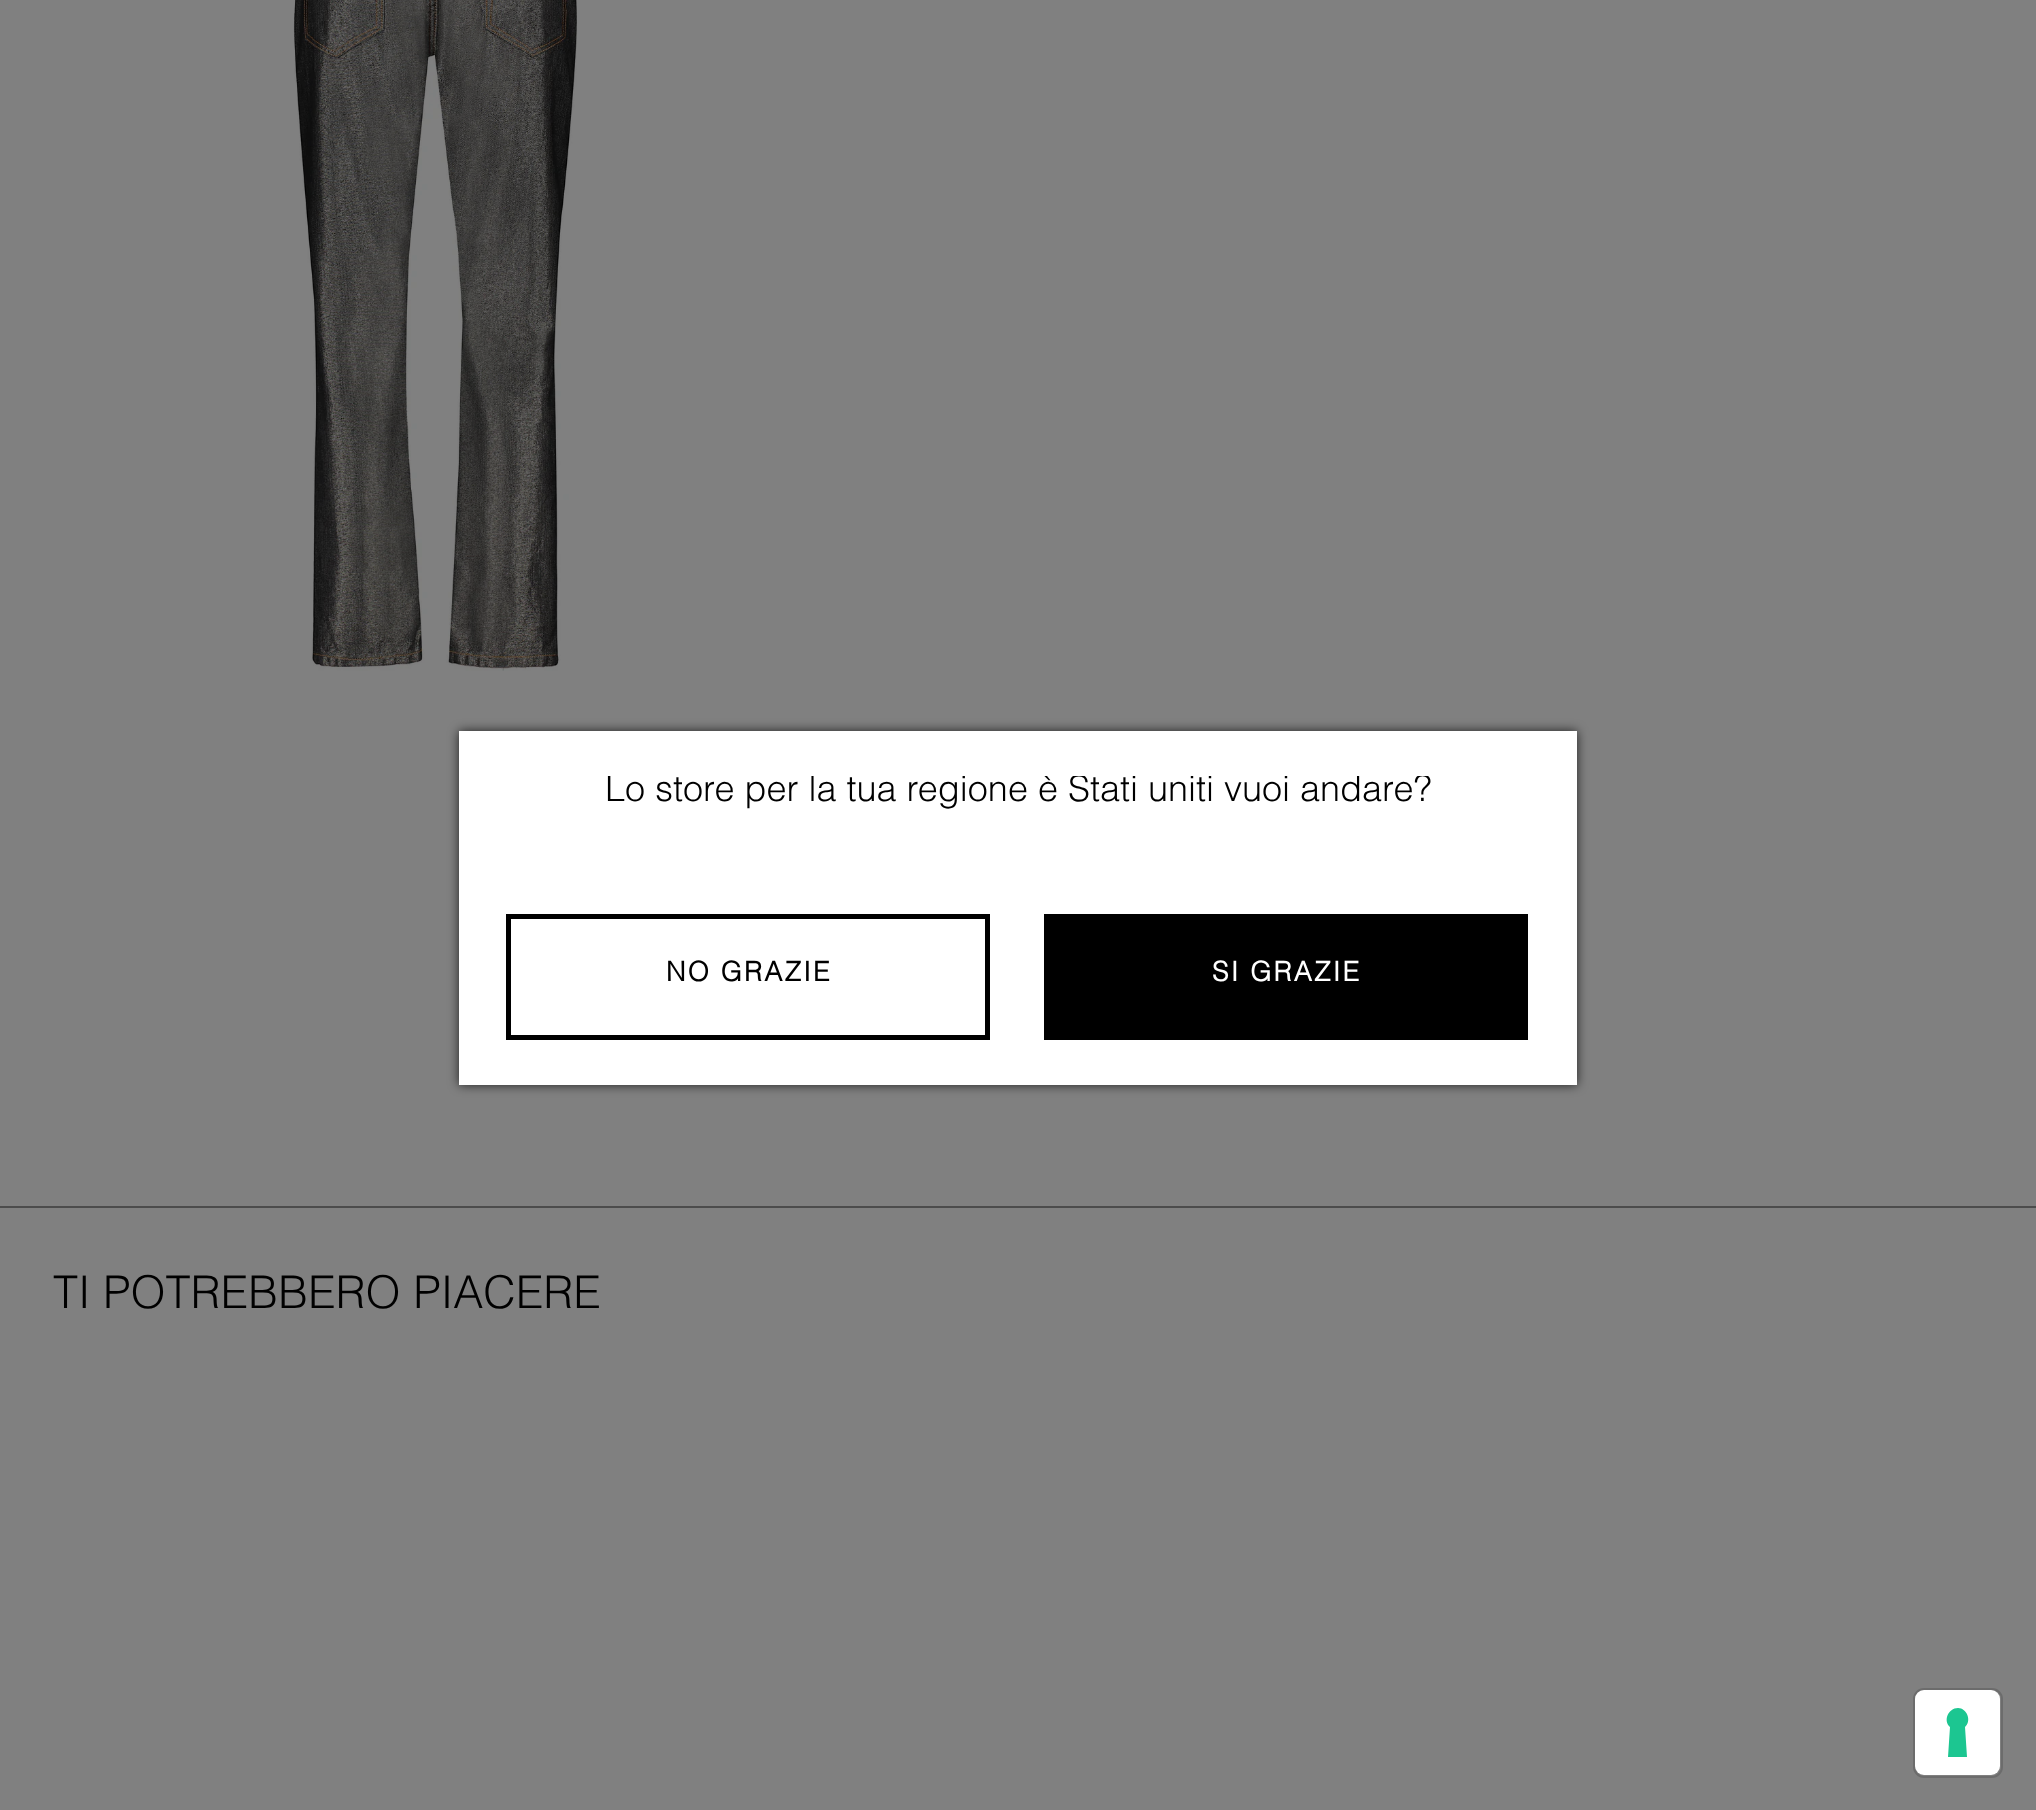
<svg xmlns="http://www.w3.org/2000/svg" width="2036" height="1810">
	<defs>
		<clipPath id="clip1"><rect x="482" y="776" width="1073" height="81" /></clipPath>
	</defs>
	<rect width="100%" height="100%" fill="#808080" />
	<image x="293" y="0" width="284" height="671" href="assets/img1.png" />
	<rect x="459" y="731" width="1118" height="354" fill="#000000" fill-opacity="0.75" filter="blur(5.5px)" />
	<rect x="459" y="731" width="1118" height="354" fill="#FFFFFF" />
	<g clip-path="url(#clip1)">
		<text x="605" y="801" font-family="Helvetica" font-size="36" font-weight="300" fill="#000000">Lo store per la tua regione è Stati uniti vuoi andare?</text>
	</g>
	<rect x="508.5" y="916.5" width="479" height="121" fill="none" stroke="#000000" stroke-width="5" />
	<text x="666" y="981" font-family="Helvetica" font-size="27" font-weight="700" letter-spacing="2.25" fill="#000000">NO GRAZIE</text>
	<rect x="1044" y="914" width="484" height="126" fill="#000000" />
	<text x="1212" y="981" font-family="Helvetica" font-size="27" font-weight="700" letter-spacing="2.25" fill="#FFFFFF">SI GRAZIE</text>
	<rect x="0" y="1206" width="2036" height="2" fill="#4C4C4C" />
	<text x="53" y="1308" font-family="Helvetica" font-size="45" font-weight="300" fill="#000000">TI POTREBBERO PIACERE</text>
	<rect x="1914" y="1689" width="88" height="88" rx="10" fill="none" stroke="#6C6C6C" stroke-width="2" />
	<rect x="1915" y="1690" width="85" height="85" rx="9" fill="#FFFFFF" />
	<path d="M1958 1708C1967 1708 1972 1721 1965 1727L1967 1757H1948L1950 1727C1943 1721 1948 1708 1958 1708Z" fill="#1CC691" fill-rule="evenodd" />
</svg>
